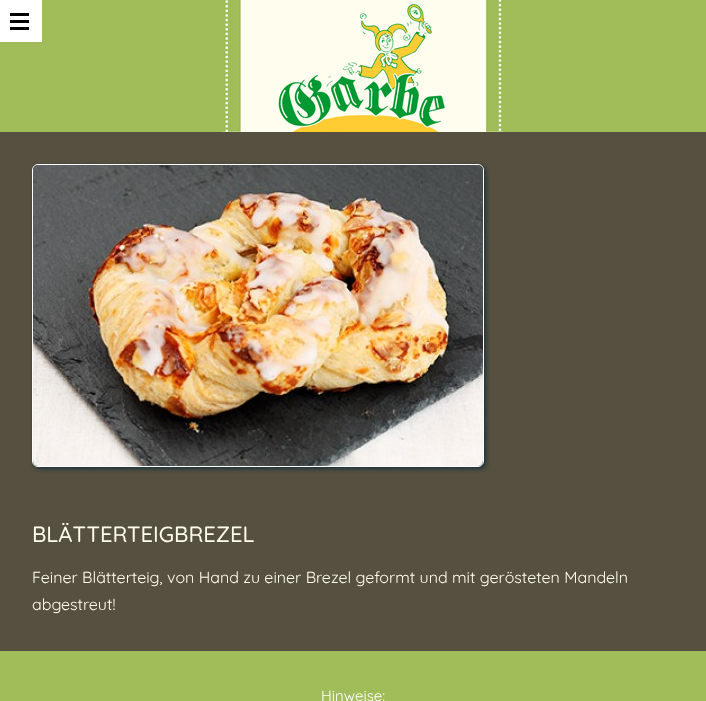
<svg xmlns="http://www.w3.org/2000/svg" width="706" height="701">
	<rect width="100%" height="100%" fill="#A0BD59" />
	<rect x="0" y="0" width="42" height="42" fill="#FFFFFF" />
	<rect x="10" y="13" width="19" height="3" fill="#000000" />
	<rect x="10" y="20" width="19" height="3" fill="#000000" />
	<rect x="10" y="27" width="19" height="3" fill="#000000" />
	<image x="223" y="0" width="280" height="132" href="assets/img1.png" />
	<rect x="0" y="132" width="706" height="519" fill="#565040" />
	<rect x="34" y="166" width="452" height="303" rx="6" fill="#01263B" fill-opacity="0.7" filter="blur(2px)" />
	<rect x="32.5" y="164.5" width="451" height="302" rx="5.5" fill="none" stroke="#FFFFFF" />
	<image x="33" y="165" width="450" height="301" href="assets/img2.png" />
	<text x="32" y="542" font-family="Quicksand" font-size="22" font-weight="500" fill="#FFFDEE">BLÄTTERTEIGBREZEL</text>
	<g font-family="Quicksand" font-size="16" fill="#FFFDEE">
		<text x="32" y="583">Feiner Blätterteig, von Hand zu einer Brezel geformt und mit gerösteten Mandeln</text>
		<text x="32" y="610">abgestreut!</text>
	</g>
	<text x="321" y="701" font-family="Quicksand" font-size="15" fill="#FFFFFF">Hinweise:</text>
</svg>
